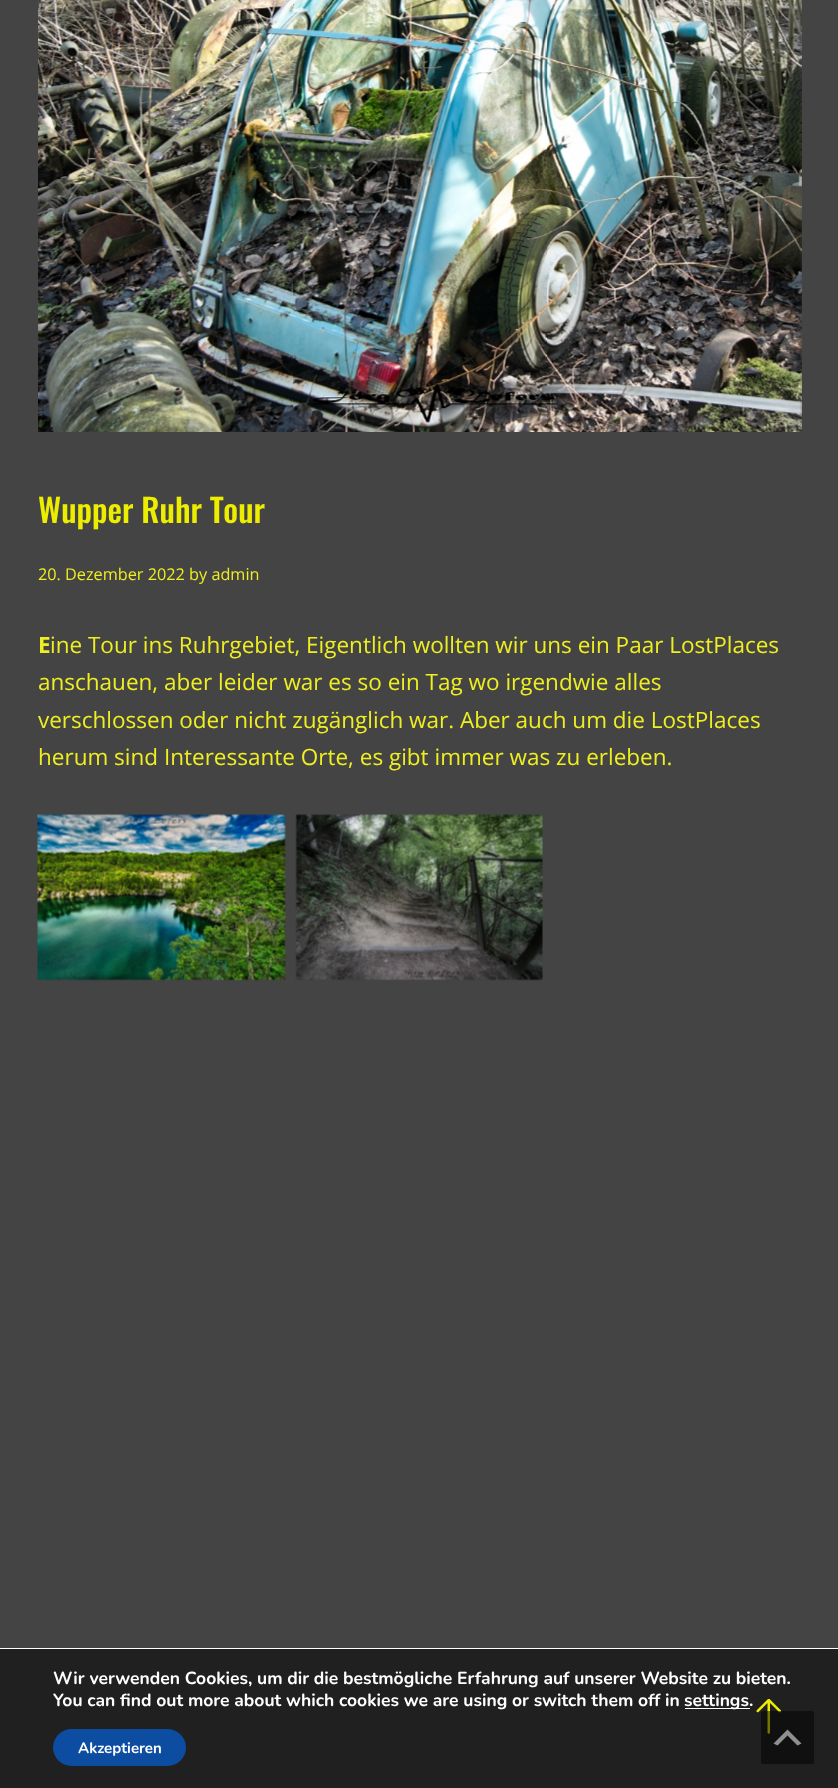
<svg xmlns="http://www.w3.org/2000/svg" width="838" height="1788">
	<rect width="100%" height="100%" fill="#444444" />
	<image x="38" y="0" width="764" height="432" href="assets/img1.png" />
	<text x="38" y="523" font-family="Oswald" font-size="32.5" font-weight="500" fill="#EDED00">Wupper Ruhr Tour</text>
	<text x="38" y="580" font-family="Open Sans" font-size="16.25" fill="#EEEE22">20. Dezember 2022 by admin</text>
	<text x="38" y="653" font-family="Open Sans" font-size="22.5" font-weight="700" fill="#EEEE22">E</text>
	<g font-family="Open Sans" font-size="22.5" fill="#EEEE22">
		<text x="50" y="653">ine Tour ins Ruhrgebiet, Eigentlich wollten wir uns ein Paar LostPlaces</text>
		<text x="38" y="690">anschauen, aber leider war es so ein Tag wo irgendwie alles</text>
		<text x="38" y="728">verschlossen oder nicht zugänglich war. Aber auch um die LostPlaces</text>
		<text x="38" y="765">herum sind Interessante Orte, es gibt immer was zu erleben.</text>
	</g>
	<image x="37" y="814" width="249" height="167" href="assets/img2.png" />
	<image x="295" y="814" width="248" height="167" href="assets/img3.png" />
	<rect x="0" y="1649" width="838" height="139" fill="#202020" />
	<rect x="0" y="1648" width="838" height="1" fill="#FFFFFF" />
	<g font-family="Nunito" font-size="17.5" font-weight="700" fill="#FFFFFF">
		<text x="53" y="1684">Wir verwenden Cookies, um dir die bestmögliche Erfahrung auf unserer Website zu bieten.</text>
		<text x="53" y="1706">You can find out more about which cookies we are using or switch them off in</text>
	</g>
	<rect x="685" y="1708" width="65" height="1" fill="#FFFFFF" />
	<text x="684" y="1706" font-family="Nunito" font-size="17.5" font-weight="700" fill="#FFFFFF">settings.</text>
	<rect x="53" y="1729" width="133" height="37" rx="18.5" fill="#0C4DA2" />
	<text x="78" y="1753" font-family="Nunito" font-size="15" font-weight="700" fill="#FFFFFF">Akzeptieren</text>
	<image x="756" y="1699" width="25" height="35" href="assets/img4.png" />
	<rect x="761" y="1711" width="53" height="53" rx="2.5" fill="#000000" fill-opacity="0.5" />
	<path d="M797.5 1745.5L787.5 1735.5L777.5 1745.5L773.5 1743.5L787.5 1729.5L801.5 1743.5Z" fill="#909090" />
</svg>
